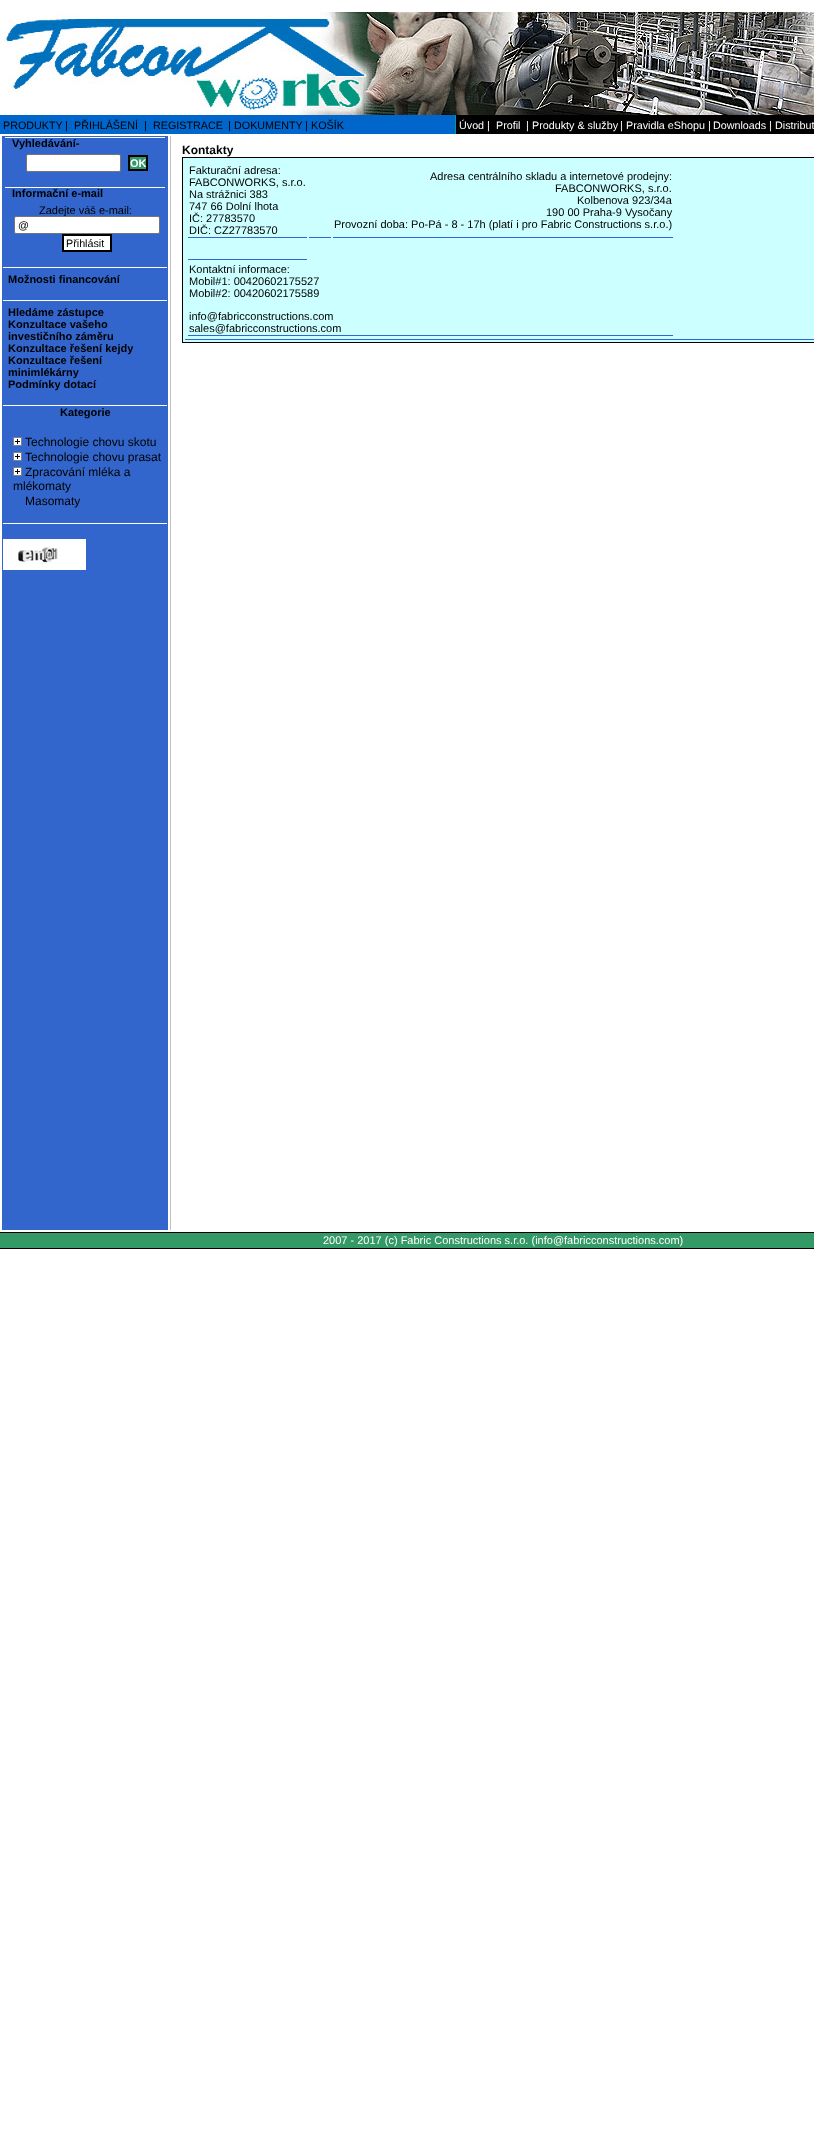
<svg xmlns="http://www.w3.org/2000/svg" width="814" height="2132">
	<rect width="100%" height="100%" fill="#FFFFFF" />
	<image x="0" y="12" width="365" height="103" href="assets/img1.png" />
	<image x="365" y="12" width="449" height="103" href="assets/img2.png" />
	<rect x="0" y="115" width="455" height="19" fill="#0066CC" />
	<text x="3" y="129" font-family="Liberation Sans" font-size="10.75" fill="#000000">PRODUKTY</text>
	<text x="65" y="129" font-family="Liberation Sans" font-size="11" fill="#000000">|</text>
	<text x="74" y="129" font-family="Liberation Sans" font-size="10.75" fill="#000000">PŘIHLÁŠENÍ</text>
	<text x="144" y="129" font-family="Liberation Sans" font-size="11" fill="#000000">|</text>
	<text x="153" y="129" font-family="Liberation Sans" font-size="10.75" fill="#000000">REGISTRACE</text>
	<text x="228" y="129" font-family="Liberation Sans" font-size="11" fill="#000000">|</text>
	<text x="234" y="129" font-family="Liberation Sans" font-size="10.75" fill="#000000">DOKUMENTY</text>
	<text x="305" y="129" font-family="Liberation Sans" font-size="11" fill="#000000">|</text>
	<text x="311" y="129" font-family="Liberation Sans" font-size="10.75" fill="#000000">KOŠÍK</text>
	<rect x="455" y="115" width="1" height="19" fill="#009999" />
	<rect x="456" y="115" width="358" height="19" fill="#000000" />
	<text x="459" y="129" font-family="Liberation Sans" font-size="10.75" fill="#FFFFFF">Úvod</text>
	<text x="487" y="129" font-family="Liberation Sans" font-size="11" fill="#FFFFFF">|</text>
	<text x="496" y="129" font-family="Liberation Sans" font-size="10.75" fill="#FFFFFF">Profil</text>
	<text x="526" y="129" font-family="Liberation Sans" font-size="11" fill="#FFFFFF">|</text>
	<text x="532" y="129" font-family="Liberation Sans" font-size="10.75" fill="#FFFFFF">Produkty &amp; služby</text>
	<text x="620" y="129" font-family="Liberation Sans" font-size="11" fill="#FFFFFF">|</text>
	<text x="626" y="129" font-family="Liberation Sans" font-size="10.75" fill="#FFFFFF">Pravidla eShopu</text>
	<text x="708" y="129" font-family="Liberation Sans" font-size="11" fill="#FFFFFF">|</text>
	<text x="713" y="129" font-family="Liberation Sans" font-size="10.75" fill="#FFFFFF">Downloads</text>
	<text x="769" y="129" font-family="Liberation Sans" font-size="11" fill="#FFFFFF">|</text>
	<text x="775" y="129" font-family="Liberation Sans" font-size="10.75" fill="#FFFFFF">Distribut</text>
	<rect x="2" y="136" width="166" height="1094" fill="#3366CC" />
	<rect x="5" y="137" width="160" height="1" fill="#FFFFFF" />
	<text x="12" y="147" font-family="Liberation Sans" font-size="11" font-weight="700" fill="#000000">Vyhledávání-</text>
	<rect x="26.5" y="154.5" width="94" height="17" rx="1.5" fill="#FFFFFF" stroke="#767676" />
	<rect x="129" y="156" width="18" height="14" fill="#339966" stroke="#000000" stroke-width="2" />
	<text x="130" y="167" font-family="Liberation Sans" font-size="11" font-weight="700" fill="#FFFFFF">OK</text>
	<rect x="5" y="187" width="160" height="1" fill="#FFFFFF" />
	<text x="12" y="197" font-family="Liberation Sans" font-size="11" font-weight="700" fill="#000000">Informační e-mail</text>
	<text x="39" y="214" font-family="Liberation Sans" font-size="11" fill="#000000">Zadejte váš e-mail:</text>
	<rect x="14.5" y="216.5" width="145" height="17" rx="1.5" fill="#FFFFFF" stroke="#767676" />
	<text x="18" y="229" font-family="Liberation Sans" font-size="10.75" fill="#000000">@</text>
	<rect x="63" y="235" width="48" height="16" fill="#FFFFFF" stroke="#000000" stroke-width="2" />
	<text x="66" y="247" font-family="Liberation Sans" font-size="10.75" fill="#000000">Přihlásit</text>
	<rect x="3" y="267" width="164" height="1" fill="#FFFFFF" />
	<text x="8" y="283" font-family="Liberation Sans" font-size="11" font-weight="700" fill="#000000">Možnosti financování</text>
	<rect x="3" y="300" width="164" height="1" fill="#FFFFFF" />
	<g font-family="Liberation Sans" font-size="11" font-weight="700" fill="#000000">
		<text x="8" y="316">Hledáme zástupce</text>
		<text x="8" y="328">Konzultace vašeho</text>
		<text x="8" y="340">investičního záměru</text>
		<text x="8" y="352">Konzultace řešení kejdy</text>
		<text x="8" y="364">Konzultace řešení</text>
		<text x="8" y="376">minimlékárny</text>
		<text x="8" y="388">Podmínky dotací</text>
	</g>
	<rect x="3" y="405" width="164" height="1" fill="#FFFFFF" />
	<text x="60" y="416" font-family="Liberation Sans" font-size="11" font-weight="700" fill="#000000">Kategorie</text>
	<image x="13" y="437" width="9" height="9" href="assets/img3.png" />
	<text x="25" y="446" font-family="Liberation Sans" font-size="12" fill="#000000">Technologie chovu skotu</text>
	<image x="13" y="452" width="9" height="9" href="assets/img3.png" />
	<text x="25" y="461" font-family="Liberation Sans" font-size="12" fill="#000000">Technologie chovu prasat</text>
	<image x="13" y="467" width="9" height="9" href="assets/img3.png" />
	<g font-family="Liberation Sans" font-size="12" fill="#000000">
		<text x="25" y="476">Zpracování mléka a</text>
		<text x="13" y="490">mlékomaty</text>
		<text x="25" y="505">Masomaty</text>
	</g>
	<rect x="3" y="523" width="164" height="1" fill="#FFFFFF" />
	<image x="3" y="539" width="83" height="31" href="assets/img4.png" />
	<rect x="170" y="136" width="1" height="1094" fill="#C0C0C0" />
	<text x="182" y="154" font-family="Liberation Sans" font-size="12" font-weight="700" fill="#000000">Kontakty</text>
	<rect x="182.5" y="157.5" width="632" height="185" fill="#CCFFFF" stroke="#000000" />
	<rect x="185" y="339" width="629" height="1" fill="#3366CC" />
	<rect x="188" y="237" width="119" height="1" fill="#3366CC" />
	<g font-family="Liberation Sans" font-size="11" fill="#000000">
		<text x="189" y="174">Fakturační adresa:</text>
		<text x="189" y="186">FABCONWORKS, s.r.o.</text>
		<text x="189" y="198">Na strážnici 383</text>
		<text x="189" y="210">747 66 Dolní lhota</text>
		<text x="189" y="222">IČ: 27783570</text>
		<text x="189" y="234">DIČ: CZ27783570</text>
	</g>
	<rect x="333" y="237" width="340" height="1" fill="#3366CC" />
	<g font-family="Liberation Sans" font-size="11" fill="#000000">
		<text x="430" y="180">Adresa centrálního skladu a internetové prodejny:</text>
		<text x="555" y="192">FABCONWORKS, s.r.o.</text>
		<text x="577" y="204">Kolbenova 923/34a</text>
		<text x="546" y="216">190 00 Praha-9 Vysočany</text>
		<text x="334" y="228">Provozní doba: Po-Pá - 8 - 17h (platí i pro Fabric Constructions s.r.o.)</text>
	</g>
	<rect x="309" y="237" width="22" height="1" fill="#3366CC" />
	<rect x="188" y="259" width="119" height="1" fill="#3366CC" />
	<rect x="188" y="335" width="485" height="1" fill="#3366CC" />
	<g font-family="Liberation Sans" font-size="11" fill="#000000">
		<text x="189" y="273">Kontaktní informace:</text>
		<text x="189" y="285">Mobil#1: 00420602175527</text>
		<text x="189" y="297">Mobil#2: 00420602175589</text>
		<text x="189" y="320">info@fabricconstructions.com</text>
		<text x="189" y="332">sales@fabricconstructions.com</text>
	</g>
	<rect x="0" y="1233" width="814" height="15" fill="#339966" />
	<rect x="0" y="1232" width="814" height="1" fill="#000000" />
	<rect x="0" y="1248" width="814" height="1" fill="#000000" />
	<text x="323" y="1244" font-family="Liberation Sans" font-size="11" fill="#FFFFFF">2007 - 2017 (c) Fabric Constructions s.r.o. (info@fabricconstructions.com)</text>
</svg>
